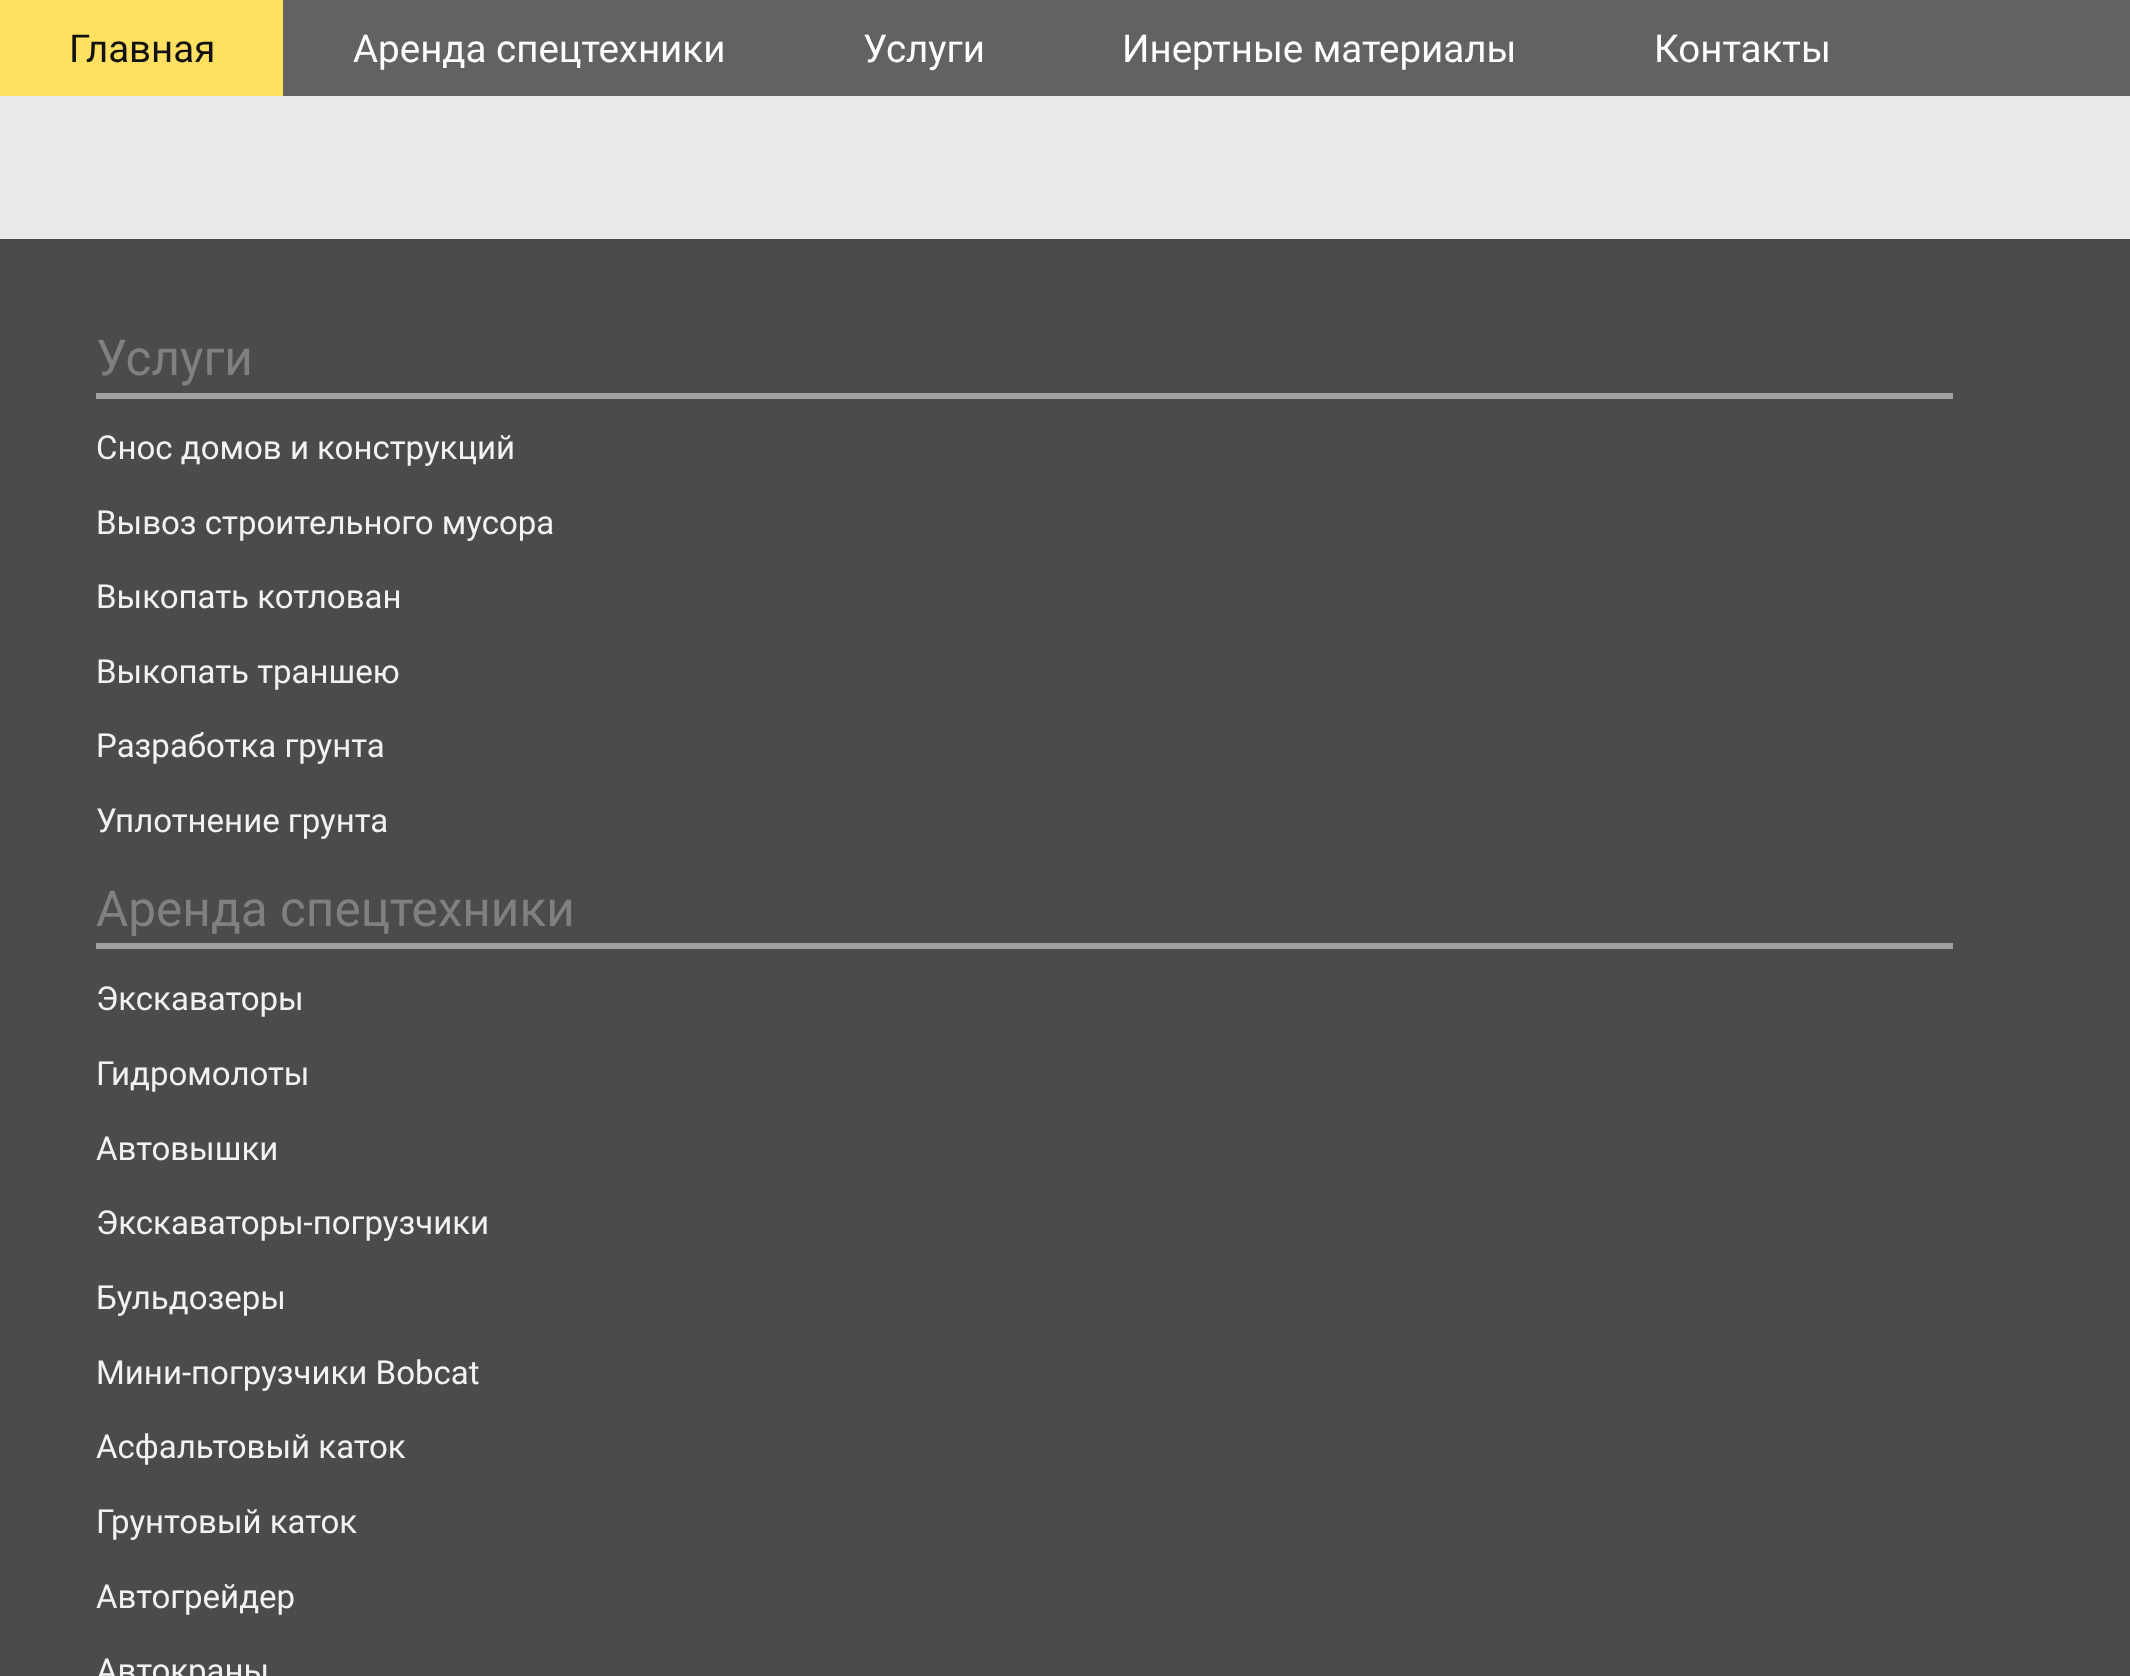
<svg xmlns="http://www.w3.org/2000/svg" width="2130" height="1676">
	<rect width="100%" height="100%" fill="#4A4B4A" />
	<rect x="283" y="0" width="1847" height="96" fill="#626262" />
	<rect x="0" y="0" width="283" height="96" fill="#FFE060" />
	<text x="69" y="62" font-family="Roboto" font-size="38.5" fill="#111111">Главная</text>
	<g font-family="Roboto" font-size="38.5" fill="#FFFFFF">
		<text x="353" y="62">Аренда спецтехники</text>
		<text x="863" y="62">Услуги</text>
		<text x="1122" y="62">Инертные материалы</text>
		<text x="1654" y="62">Контакты</text>
	</g>
	<rect x="0" y="96" width="2130" height="143" fill="#EAEAEA" />
	<rect x="96" y="393" width="1857" height="6" fill="#A0A0A0" />
	<text x="96" y="375" font-family="Roboto" font-size="49.5" fill="#808080">Услуги</text>
	<g font-family="Roboto" font-size="33" fill="#F2F2F2">
		<text x="96" y="459">Снос домов и конструкций</text>
		<text x="96" y="534">Вывоз строительного мусора</text>
		<text x="96" y="608">Выкопать котлован</text>
		<text x="96" y="683">Выкопать траншею</text>
		<text x="96" y="757">Разработка грунта</text>
		<text x="96" y="832">Уплотнение грунта</text>
	</g>
	<rect x="96" y="943" width="1857" height="6" fill="#A0A0A0" />
	<text x="96" y="926" font-family="Roboto" font-size="49.5" fill="#808080">Аренда спецтехники</text>
	<g font-family="Roboto" font-size="33" fill="#F2F2F2">
		<text x="96" y="1010">Экскаваторы</text>
		<text x="96" y="1085">Гидромолоты</text>
		<text x="96" y="1160">Автовышки</text>
		<text x="96" y="1234">Экскаваторы-погрузчики</text>
		<text x="96" y="1309">Бульдозеры</text>
		<text x="96" y="1384">Мини-погрузчики Bobcat</text>
		<text x="96" y="1458">Асфальтовый каток</text>
		<text x="96" y="1533">Грунтовый каток</text>
		<text x="96" y="1608">Автогрейдер</text>
		<text x="96" y="1682">Автокраны</text>
	</g>
</svg>
